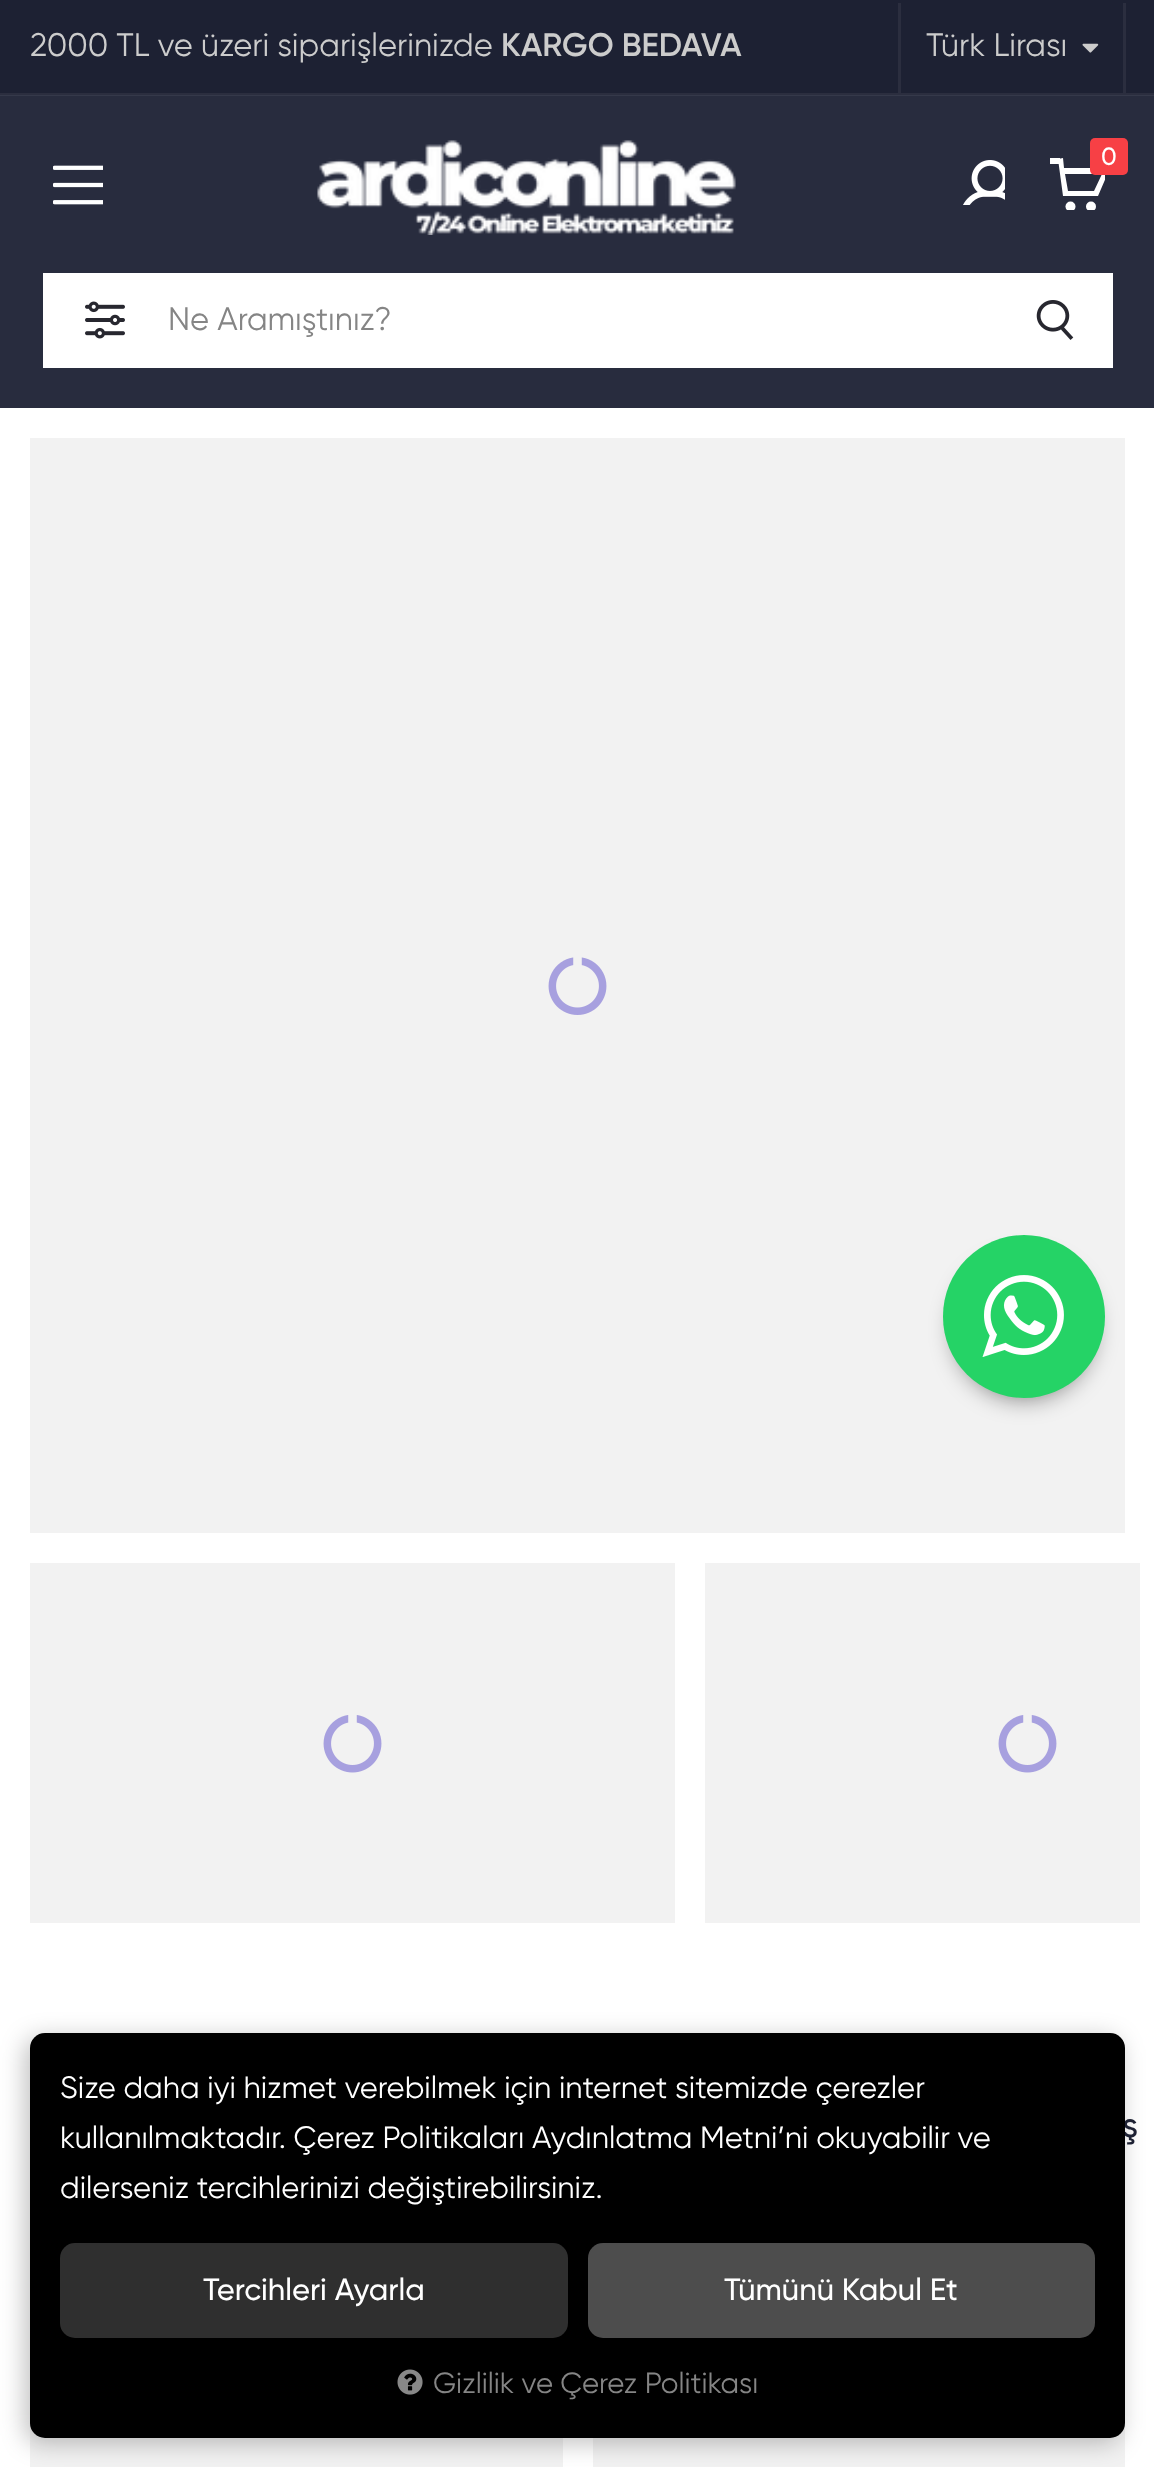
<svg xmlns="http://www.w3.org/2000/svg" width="1154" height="2467">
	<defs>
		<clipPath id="clip1"><rect x="1050" y="155" width="55" height="55" /></clipPath>
	</defs>
	<rect width="100%" height="100%" fill="#FFFFFF" />
	<rect x="0" y="96" width="1154" height="312" fill="#282C3E" />
	<rect x="0" y="95" width="1154" height="1" fill="#35394A" />
	<rect x="0" y="0" width="1154" height="93" fill="#1D2133" />
	<rect x="0" y="93" width="1154" height="2" fill="#2B2E3F" />
	<text x="30" y="56" font-family="Gilroy" font-size="32.5" fill="#CCCCCC">2000 TL ve üzeri siparişlerinizde</text>
	<text x="501" y="56" font-family="Gilroy" font-size="32.5" font-weight="600" fill="#CCCCCC">KARGO BEDAVA</text>
	<rect x="1123" y="3" width="3" height="90" fill="#2B2E3F" />
	<rect x="898" y="3" width="3" height="90" fill="#2B2E3F" />
	<text x="926" y="56" font-family="Gilroy" font-size="32.5" fill="#CCCCCC">Türk Lirası</text>
	<image x="1082" y="43" width="17" height="10" href="assets/img1.png" />
	<image x="963" y="160" width="42" height="45" href="assets/img2.png" />
	<image x="317" y="140" width="419" height="95" href="assets/img3.png" />
	<g clip-path="url(#clip1)">
		<circle cx="1070.5" cy="206.5" r="5" fill="#FFFFFF" />
		<circle cx="1091" cy="206.5" r="5" fill="#FFFFFF" />
	</g>
	<rect x="1050" y="158" width="10" height="6" fill="#FFFFFF" />
	<g clip-path="url(#clip1)">
		<path d="M1064 168L1063 158L1058 159L1063 196H1098L1110 168ZM1094 191H1068L1065 174H1102Z" fill="#FFFFFF" />
	</g>
	<rect x="1090" y="138" width="38" height="37" rx="5" fill="#F74045" />
	<text x="1101" y="165" font-family="Gilroy" font-size="25" font-weight="500" fill="#FFFFFF">0</text>
	<image x="53" y="165" width="50" height="40" href="assets/img4.png" />
	<rect x="43" y="273" width="1070" height="95" fill="#FFFFFF" />
	<image x="85" y="301" width="40" height="38" href="assets/img5.png" />
	<text x="168" y="330" font-family="Gilroy" font-size="32.5" fill="#858585">Ne Aramıştınız?</text>
	<image x="1036" y="300" width="38" height="40" href="assets/img6.png" />
	<rect x="30" y="438" width="1095" height="1095" fill="#F2F2F2" />
	<rect x="955" y="1260" width="138" height="138" rx="69" fill="#000000" fill-opacity="0.5" filter="blur(12.5px)" />
	<rect x="943" y="1235" width="162" height="163" rx="81" fill="#25D366" />
	<image x="982" y="1275" width="82" height="82" href="assets/img7.png" />
	<rect x="30" y="2423" width="533" height="44" fill="#F2F2F2" />
	<rect x="593" y="2423" width="532" height="44" fill="#F2F2F2" />
	<rect x="25" y="2038" width="1095" height="405" rx="15" fill="#000000" fill-opacity="0.25" filter="blur(12.5px)" />
	<text x="1122" y="2137" font-family="Gilroy" font-size="35" font-weight="500" fill="#1D2133">ş</text>
	<rect x="30" y="2033" width="1095" height="405" rx="15" fill="#000000" />
	<g font-family="Gilroy" font-size="30.9" fill="#FFFFFF">
		<text x="60" y="2098">Size daha iyi hizmet verebilmek için internet sitemizde çerezler</text>
		<text x="60" y="2148">kullanılmaktadır. Çerez Politikaları Aydınlatma Metni’ni okuyabilir ve</text>
		<text x="60" y="2198">dilerseniz tercihlerinizi değiştirebilirsiniz.</text>
	</g>
	<rect x="60" y="2243" width="508" height="95" rx="15" fill="#2F2F2F" />
	<text x="203" y="2300" font-family="Gilroy" font-size="30.9" font-weight="500" fill="#FFFFFF">Tercihleri Ayarla</text>
	<rect x="588" y="2243" width="507" height="95" rx="15" fill="#4D4D4D" />
	<text x="724" y="2300" font-family="Gilroy" font-size="30.9" font-weight="500" fill="#FFFFFF">Tümünü Kabul Et</text>
	<image x="397" y="2369" width="26" height="26" href="assets/img8.png" />
	<text x="433" y="2393" font-family="Gilroy" font-size="29.25" fill="#858585">Gizlilik ve Çerez Politikası</text>
	<image x="548" y="957" width="59" height="58" href="assets/img9.png" />
	<rect x="30" y="1563" width="645" height="360" fill="#F2F2F2" />
	<image x="323" y="1715" width="59" height="58" href="assets/img10.png" />
	<rect x="705" y="1563" width="435" height="360" fill="#F2F2F2" />
	<image x="998" y="1715" width="59" height="58" href="assets/img10.png" />
</svg>
